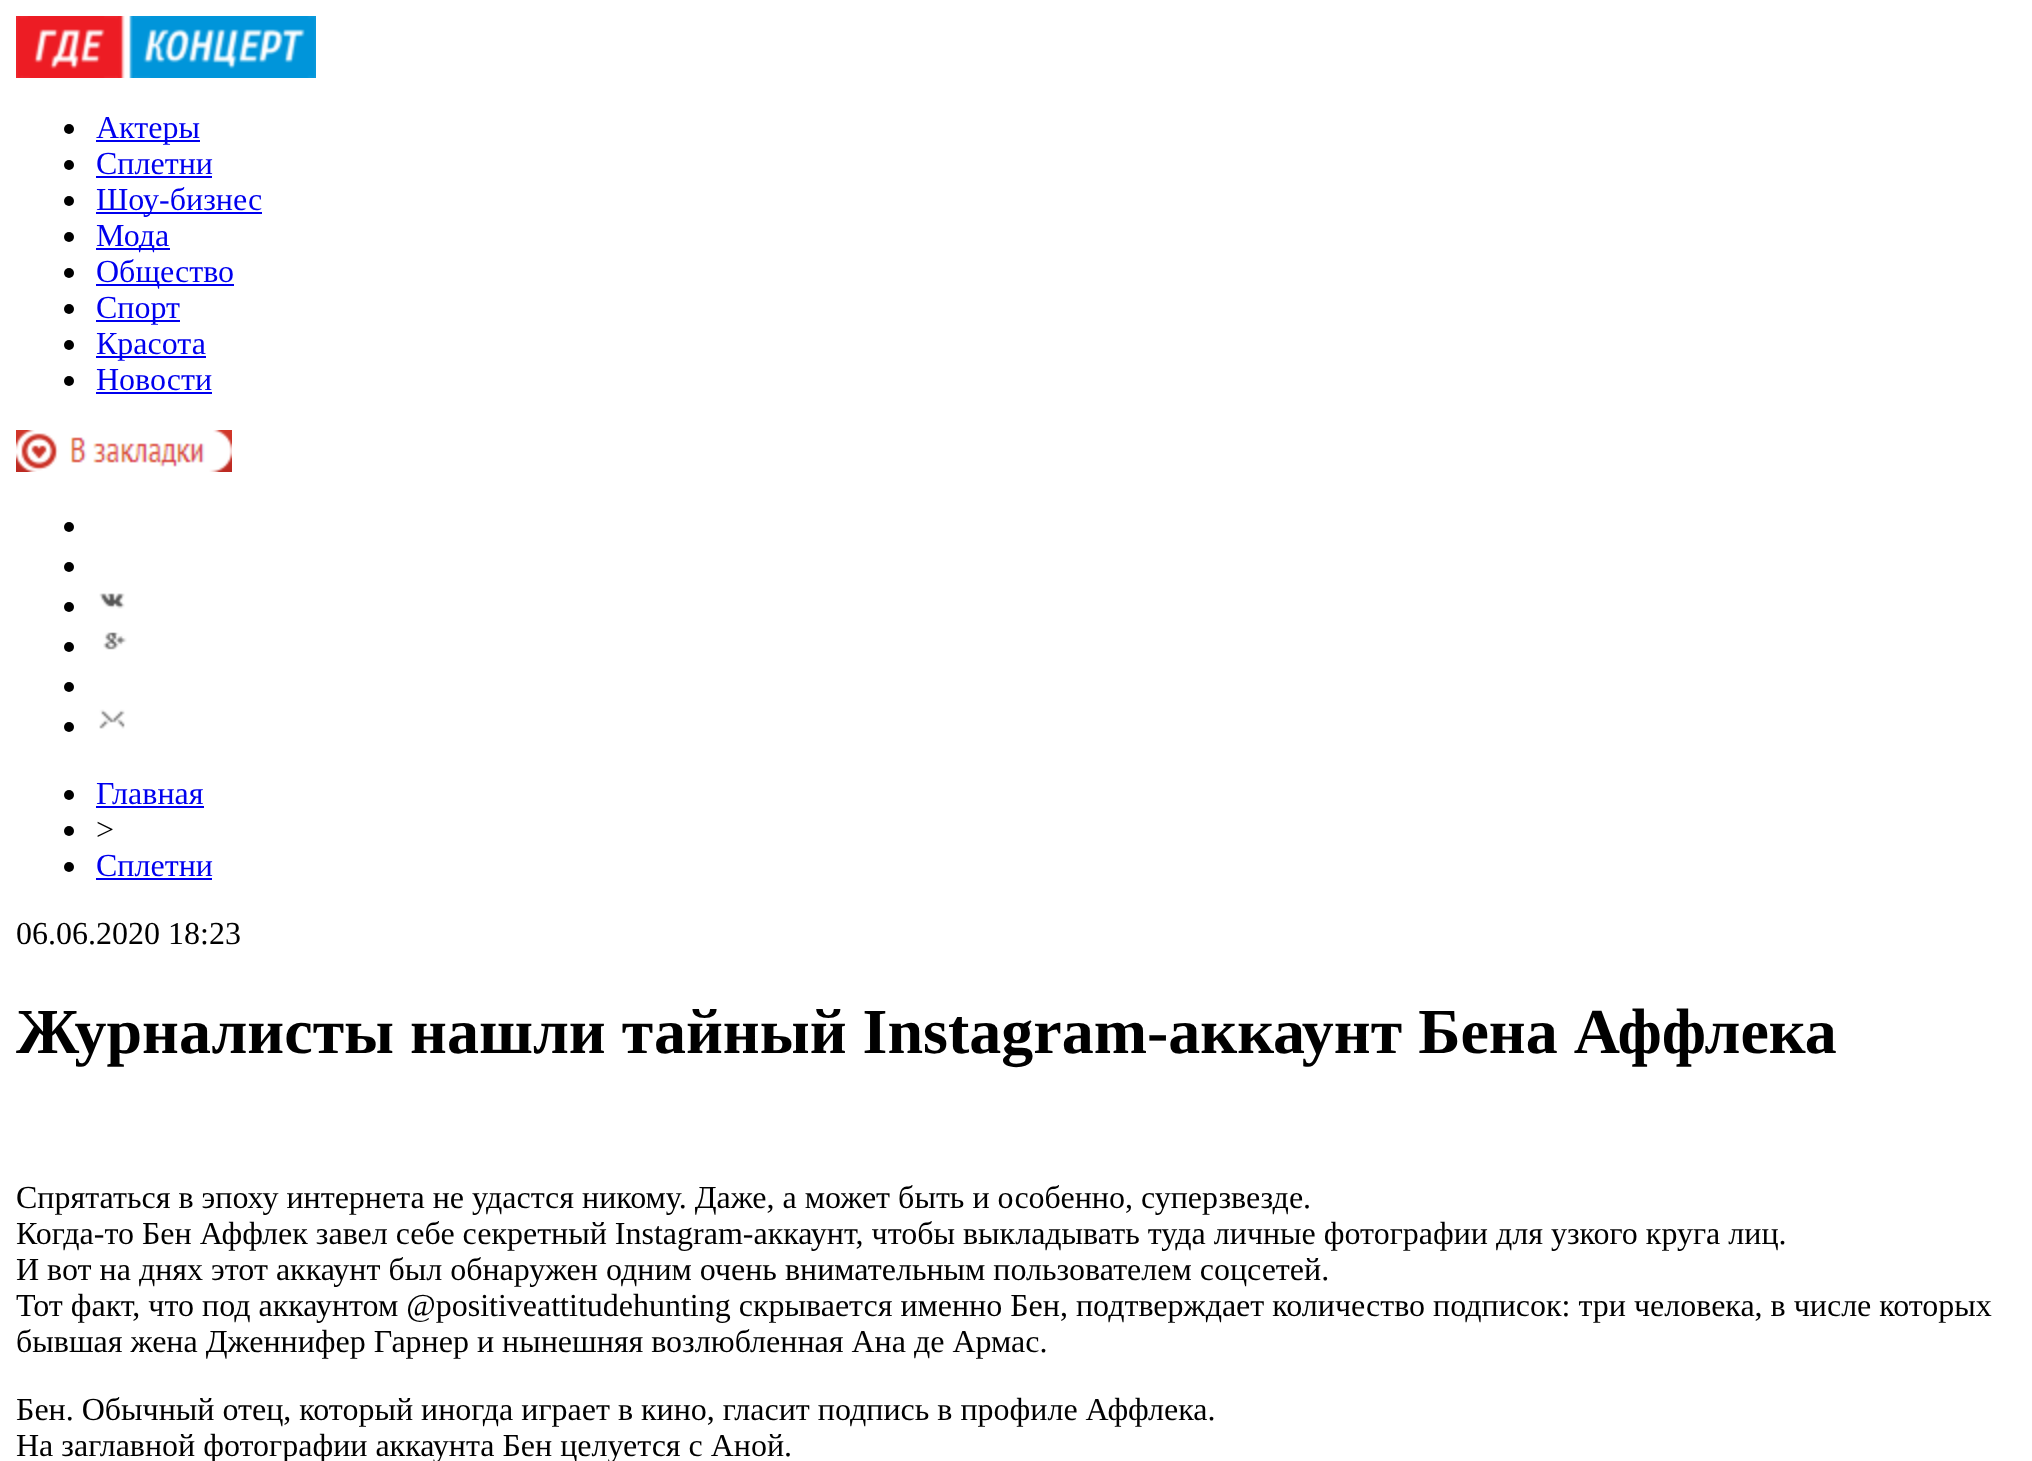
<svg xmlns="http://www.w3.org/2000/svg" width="2032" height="1461">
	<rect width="100%" height="100%" fill="#FFFFFF" />
	<image x="16" y="16" width="300" height="62" href="assets/img1.png" />
	<circle cx="69" cy="129" r="5" fill="#000000" />
	<rect x="96" y="140" width="104" height="2" fill="#0000EE" />
	<text x="96" y="138" font-family="Liberation Serif" font-size="32" fill="#0000EE">Актеры</text>
	<circle cx="69" cy="165" r="5" fill="#000000" />
	<text x="96" y="174" font-family="Liberation Serif" font-size="32" fill="#0000EE">Сплетни</text>
	<rect x="96" y="176" width="116" height="2" fill="#0000EE" />
	<circle cx="69" cy="201" r="5" fill="#000000" />
	<rect x="96" y="212" width="166" height="2" fill="#0000EE" />
	<text x="96" y="210" font-family="Liberation Serif" font-size="32" fill="#0000EE">Шоу-бизнес</text>
	<circle cx="69" cy="237" r="5" fill="#000000" />
	<rect x="96" y="248" width="74" height="2" fill="#0000EE" />
	<text x="96" y="246" font-family="Liberation Serif" font-size="32" fill="#0000EE">Мода</text>
	<circle cx="69" cy="273" r="5" fill="#000000" />
	<rect x="96" y="284" width="138" height="2" fill="#0000EE" />
	<text x="96" y="282" font-family="Liberation Serif" font-size="32" fill="#0000EE">Общество</text>
	<circle cx="69" cy="309" r="5" fill="#000000" />
	<rect x="96" y="320" width="84" height="2" fill="#0000EE" />
	<text x="96" y="318" font-family="Liberation Serif" font-size="32" fill="#0000EE">Спорт</text>
	<circle cx="69" cy="345" r="5" fill="#000000" />
	<rect x="96" y="356" width="110" height="2" fill="#0000EE" />
	<text x="96" y="354" font-family="Liberation Serif" font-size="32" fill="#0000EE">Красота</text>
	<circle cx="69" cy="381" r="5" fill="#000000" />
	<text x="96" y="390" font-family="Liberation Serif" font-size="32" fill="#0000EE">Новости</text>
	<rect x="96" y="392" width="116" height="2" fill="#0000EE" />
	<image x="16" y="430" width="216" height="42" href="assets/img2.png" />
	<circle cx="69" cy="527" r="5" fill="#000000" />
	<circle cx="69" cy="567" r="5" fill="#000000" />
	<circle cx="69" cy="607" r="5" fill="#000000" />
	<image x="99" y="593" width="26" height="16" href="assets/img3.png" />
	<circle cx="69" cy="647" r="5" fill="#000000" />
	<image x="103" y="632" width="24" height="18" href="assets/img4.png" />
	<circle cx="69" cy="687" r="5" fill="#000000" />
	<circle cx="69" cy="727" r="5" fill="#000000" />
	<image x="99" y="709" width="26" height="20" href="assets/img5.png" />
	<circle cx="69" cy="795" r="5" fill="#000000" />
	<text x="96" y="804" font-family="Liberation Serif" font-size="32" fill="#0000EE">Главная</text>
	<rect x="96" y="806" width="108" height="2" fill="#0000EE" />
	<circle cx="69" cy="831" r="5" fill="#000000" />
	<text x="96" y="840" font-family="Liberation Serif" font-size="32" fill="#000000">&gt;</text>
	<circle cx="69" cy="867" r="5" fill="#000000" />
	<text x="96" y="876" font-family="Liberation Serif" font-size="32" fill="#0000EE">Сплетни</text>
	<rect x="96" y="878" width="116" height="2" fill="#0000EE" />
	<text x="16" y="944" font-family="Liberation Serif" font-size="32" fill="#000000">06.06.2020 18:23</text>
	<text x="16" y="1053" font-family="Liberation Serif" font-size="64" font-weight="700" fill="#000000">Журналисты нашли тайный Instagram-аккаунт Бена Аффлека</text>
	<g font-family="Liberation Serif" font-size="32" fill="#000000">
		<text x="16" y="1208">Спрятаться в эпоху интернета не удастся никому. Даже, а может быть и особенно, суперзвезде.</text>
		<text x="16" y="1244">Когда-то Бен Аффлек завел себе секретный Instagram-аккаунт, чтобы выкладывать туда личные фотографии для узкого круга лиц.</text>
		<text x="16" y="1280">И вот на днях этот аккаунт был обнаружен одним очень внимательным пользователем соцсетей.</text>
		<text x="16" y="1316">Тот факт, что под аккаунтом @positiveattitudehunting скрывается именно Бен, подтверждает количество подписок: три человека, в числе которых</text>
		<text x="16" y="1352">бывшая жена Дженнифер Гарнер и нынешняя возлюбленная Ана де Армас.</text>
		<text x="16" y="1420">Бен. Обычный отец, который иногда играет в кино, гласит подпись в профиле Аффлека.</text>
		<text x="16" y="1456">На заглавной фотографии аккаунта Бен целуется с Аной.</text>
	</g>
</svg>
